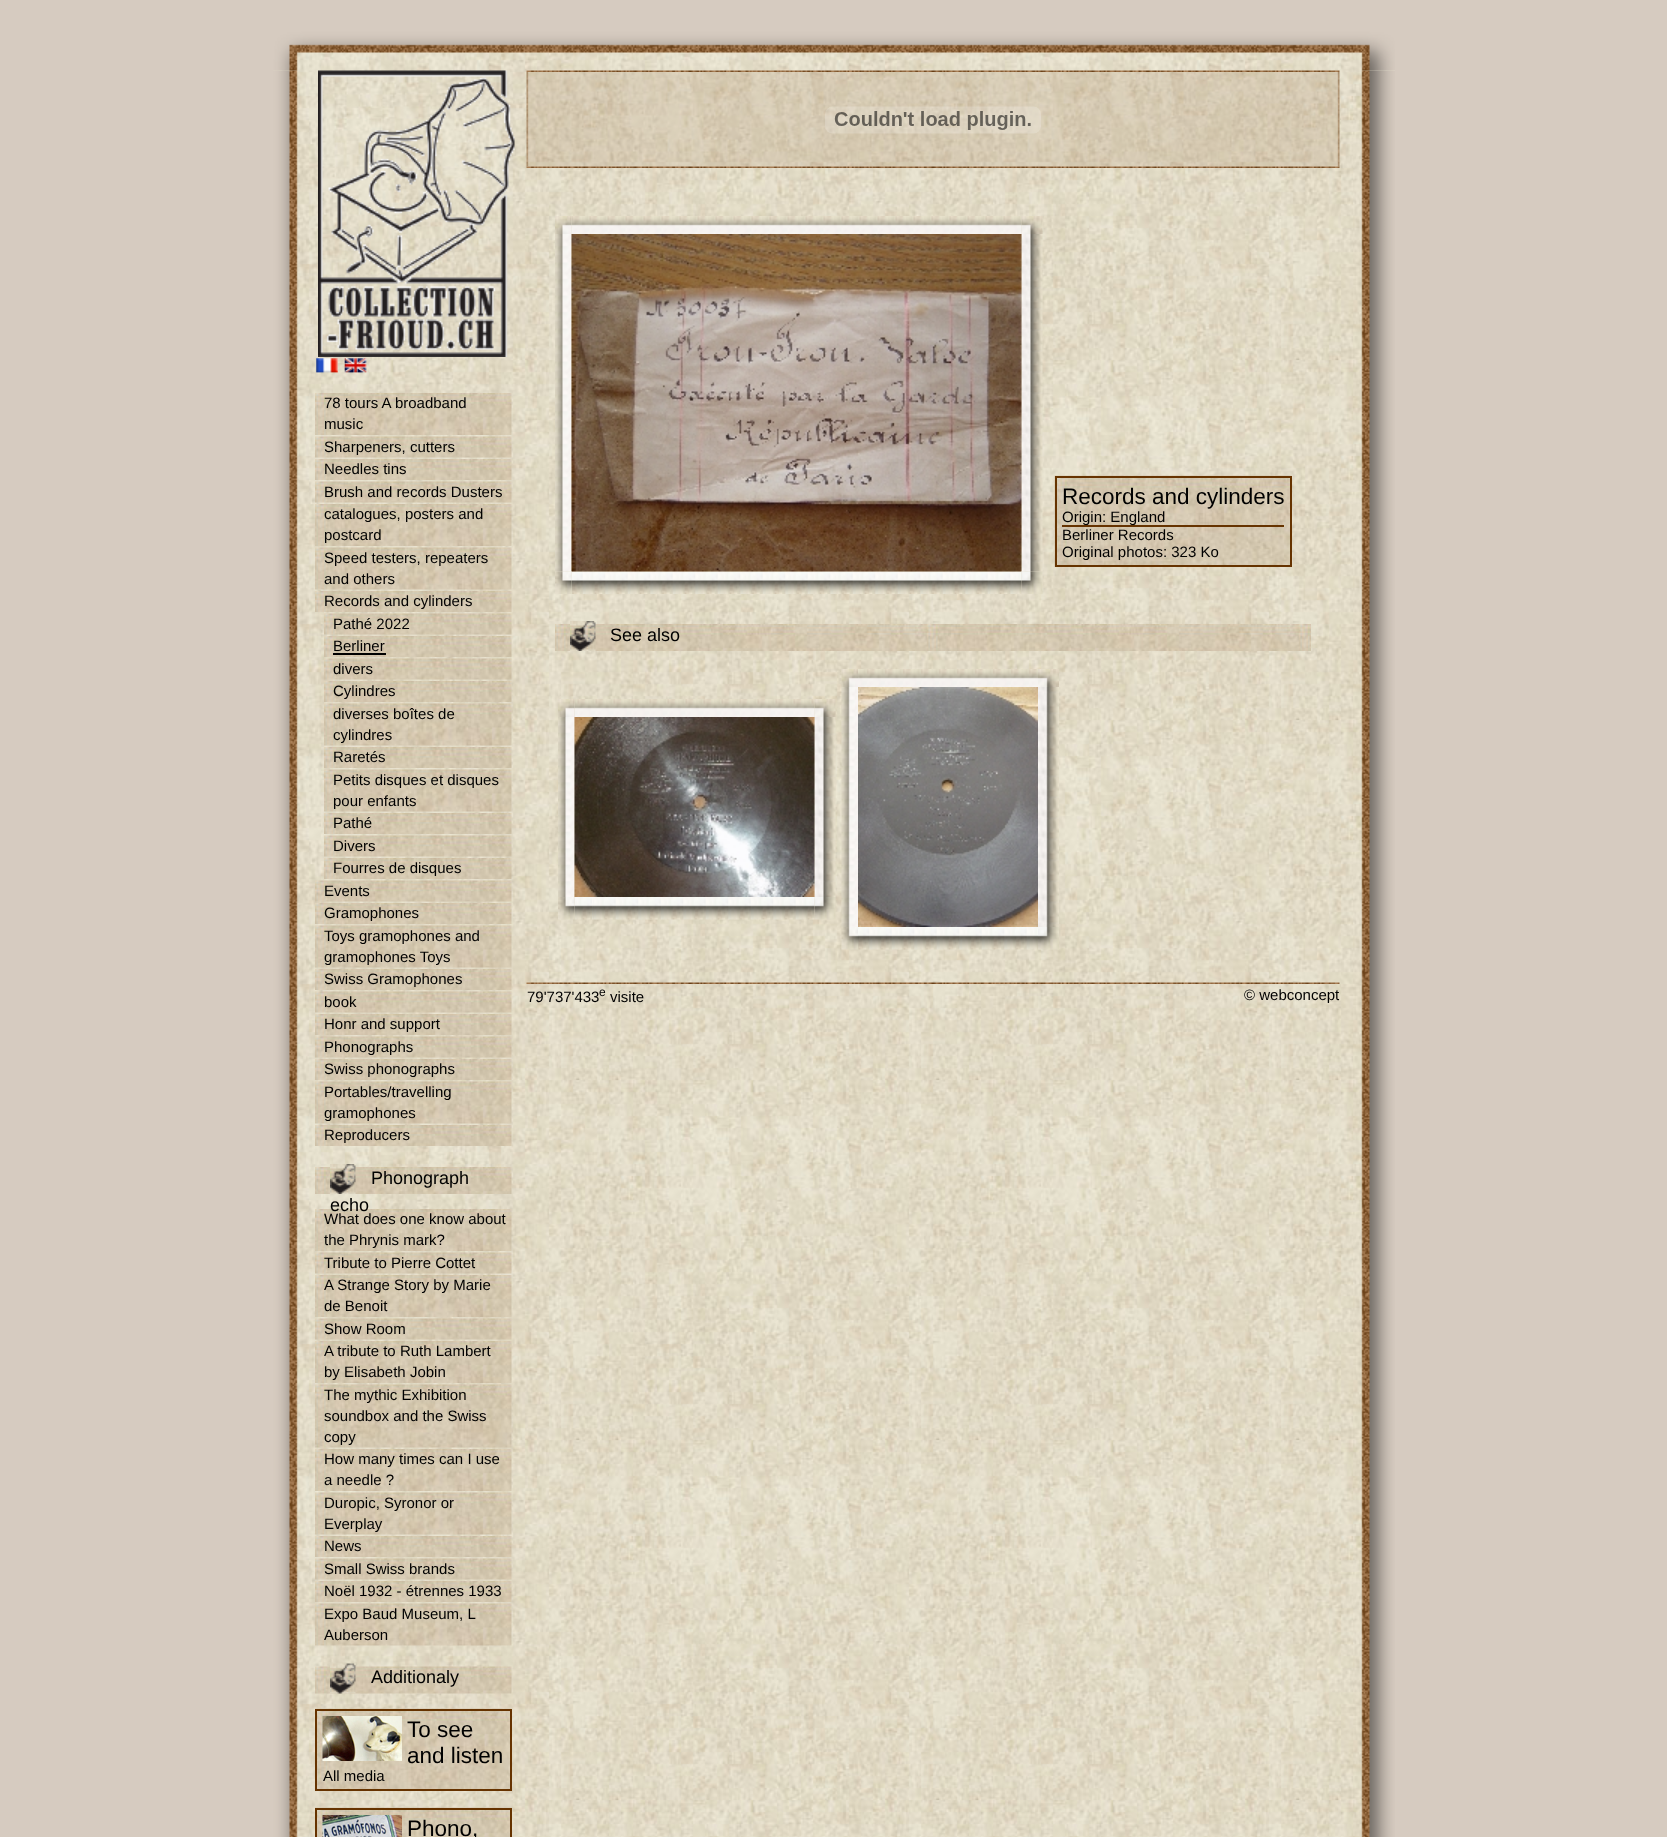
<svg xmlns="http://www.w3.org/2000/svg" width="1667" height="1837">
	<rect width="100%" height="100%" fill="#D6CBC0" />
	<image x="273" y="52" width="1122" height="1785" href="assets/img1.png" />
	<image x="273" y="70" width="25" height="1767" href="assets/img3.png" />
	<image x="526" y="70" width="814" height="2" href="assets/img54.png" />
	<image x="1361" y="70" width="34" height="1767" href="assets/img89.png" />
	<image x="273" y="30" width="1122" height="41" href="assets/img2.png" />
	<image x="318" y="70" width="197" height="287" href="assets/img4.png" />
	<image x="316" y="358" width="22" height="15" href="assets/img5.png" />
	<image x="344" y="358" width="23" height="15" href="assets/img6.png" />
	<image x="315" y="393" width="197" height="42" href="assets/img7.png" />
	<g font-family="Liberation Sans" font-size="15" fill="#000000">
		<text x="324" y="408">78 tours A broadband</text>
		<text x="324" y="429">music</text>
	</g>
	<image x="315" y="436" width="197" height="22" href="assets/img8.png" />
	<text x="324" y="452" font-family="Liberation Sans" font-size="15" fill="#000000">Sharpeners, cutters</text>
	<image x="315" y="459" width="197" height="21" href="assets/img9.png" />
	<text x="324" y="474" font-family="Liberation Sans" font-size="15" fill="#000000">Needles tins</text>
	<image x="315" y="481" width="197" height="22" href="assets/img10.png" />
	<text x="324" y="497" font-family="Liberation Sans" font-size="15" fill="#000000">Brush and records Dusters</text>
	<image x="315" y="504" width="197" height="42" href="assets/img11.png" />
	<g font-family="Liberation Sans" font-size="15" fill="#000000">
		<text x="324" y="519">catalogues, posters and</text>
		<text x="324" y="540">postcard</text>
	</g>
	<image x="315" y="547" width="197" height="43" href="assets/img12.png" />
	<g font-family="Liberation Sans" font-size="15" fill="#000000">
		<text x="324" y="563">Speed testers, repeaters</text>
		<text x="324" y="584">and others</text>
	</g>
	<image x="315" y="591" width="197" height="21" href="assets/img13.png" />
	<text x="324" y="606" font-family="Liberation Sans" font-size="15" fill="#000000">Records and cylinders</text>
	<image x="324" y="613" width="188" height="22" href="assets/img14.png" />
	<text x="333" y="629" font-family="Liberation Sans" font-size="15" fill="#000000">Pathé 2022</text>
	<image x="324" y="636" width="188" height="21" href="assets/img15.png" />
	<text x="333" y="651" font-family="Liberation Sans" font-size="15" fill="#000000">Berliner</text>
	<rect x="333" y="653" width="53" height="2" fill="#000000" />
	<image x="324" y="658" width="188" height="22" href="assets/img16.png" />
	<text x="333" y="674" font-family="Liberation Sans" font-size="15" fill="#000000">divers</text>
	<image x="324" y="681" width="188" height="21" href="assets/img17.png" />
	<text x="333" y="696" font-family="Liberation Sans" font-size="15" fill="#000000">Cylindres</text>
	<image x="324" y="703" width="188" height="43" href="assets/img18.png" />
	<g font-family="Liberation Sans" font-size="15" fill="#000000">
		<text x="333" y="719">diverses boîtes de</text>
		<text x="333" y="740">cylindres</text>
	</g>
	<image x="324" y="747" width="188" height="21" href="assets/img19.png" />
	<text x="333" y="762" font-family="Liberation Sans" font-size="15" fill="#000000">Raretés</text>
	<image x="324" y="769" width="188" height="43" href="assets/img20.png" />
	<g font-family="Liberation Sans" font-size="15" fill="#000000">
		<text x="333" y="785">Petits disques et disques</text>
		<text x="333" y="806">pour enfants</text>
	</g>
	<image x="324" y="813" width="188" height="21" href="assets/img21.png" />
	<text x="333" y="828" font-family="Liberation Sans" font-size="15" fill="#000000">Pathé</text>
	<image x="324" y="835" width="188" height="22" href="assets/img22.png" />
	<text x="333" y="851" font-family="Liberation Sans" font-size="15" fill="#000000">Divers</text>
	<image x="324" y="858" width="188" height="21" href="assets/img23.png" />
	<text x="333" y="873" font-family="Liberation Sans" font-size="15" fill="#000000">Fourres de disques</text>
	<image x="315" y="880" width="197" height="22" href="assets/img24.png" />
	<text x="324" y="896" font-family="Liberation Sans" font-size="15" fill="#000000">Events</text>
	<image x="315" y="903" width="197" height="21" href="assets/img25.png" />
	<text x="324" y="918" font-family="Liberation Sans" font-size="15" fill="#000000">Gramophones</text>
	<image x="315" y="925" width="197" height="43" href="assets/img26.png" />
	<g font-family="Liberation Sans" font-size="15" fill="#000000">
		<text x="324" y="941">Toys gramophones and</text>
		<text x="324" y="962">gramophones Toys</text>
	</g>
	<image x="315" y="969" width="197" height="21" href="assets/img27.png" />
	<text x="324" y="984" font-family="Liberation Sans" font-size="15" fill="#000000">Swiss Gramophones</text>
	<image x="315" y="991" width="197" height="22" href="assets/img28.png" />
	<text x="324" y="1007" font-family="Liberation Sans" font-size="15" fill="#000000">book</text>
	<image x="315" y="1014" width="197" height="21" href="assets/img29.png" />
	<text x="324" y="1029" font-family="Liberation Sans" font-size="15" fill="#000000">Honr and support</text>
	<image x="315" y="1036" width="197" height="22" href="assets/img30.png" />
	<text x="324" y="1052" font-family="Liberation Sans" font-size="15" fill="#000000">Phonographs</text>
	<image x="315" y="1059" width="197" height="21" href="assets/img31.png" />
	<text x="324" y="1074" font-family="Liberation Sans" font-size="15" fill="#000000">Swiss phonographs</text>
	<image x="315" y="1081" width="197" height="43" href="assets/img32.png" />
	<g font-family="Liberation Sans" font-size="15" fill="#000000">
		<text x="324" y="1097">Portables/travelling</text>
		<text x="324" y="1118">gramophones</text>
	</g>
	<image x="315" y="1125" width="197" height="21" href="assets/img33.png" />
	<text x="324" y="1140" font-family="Liberation Sans" font-size="15" fill="#000000">Reproducers</text>
	<image x="315" y="1167" width="197" height="27" href="assets/img34.png" />
	<image x="330" y="1164" width="26" height="30" href="assets/img35.png" />
	<text x="371" y="1184" font-family="Liberation Sans" font-size="18" fill="#000000">Phonograph</text>
	<image x="315" y="1209" width="197" height="42" href="assets/img36.png" />
	<text x="330" y="1211" font-family="Liberation Sans" font-size="18" fill="#000000">echo</text>
	<g font-family="Liberation Sans" font-size="15" fill="#000000">
		<text x="324" y="1224">What does one know about</text>
		<text x="324" y="1245">the Phrynis mark?</text>
	</g>
	<image x="315" y="1252" width="197" height="22" href="assets/img37.png" />
	<text x="324" y="1268" font-family="Liberation Sans" font-size="15" fill="#000000">Tribute to Pierre Cottet</text>
	<image x="315" y="1275" width="197" height="42" href="assets/img38.png" />
	<g font-family="Liberation Sans" font-size="15" fill="#000000">
		<text x="324" y="1290">A Strange Story by Marie</text>
		<text x="324" y="1311">de Benoit</text>
	</g>
	<image x="315" y="1318" width="197" height="22" href="assets/img39.png" />
	<text x="324" y="1334" font-family="Liberation Sans" font-size="15" fill="#000000">Show Room</text>
	<image x="315" y="1341" width="197" height="42" href="assets/img40.png" />
	<g font-family="Liberation Sans" font-size="15" fill="#000000">
		<text x="324" y="1356">A tribute to Ruth Lambert</text>
		<text x="324" y="1377">by Elisabeth Jobin</text>
	</g>
	<image x="315" y="1384" width="197" height="64" href="assets/img41.png" />
	<g font-family="Liberation Sans" font-size="15" fill="#000000">
		<text x="324" y="1400">The mythic Exhibition</text>
		<text x="324" y="1421">soundbox and the Swiss</text>
		<text x="324" y="1442">copy</text>
	</g>
	<image x="315" y="1449" width="197" height="42" href="assets/img42.png" />
	<g font-family="Liberation Sans" font-size="15" fill="#000000">
		<text x="324" y="1464">How many times can I use</text>
		<text x="324" y="1485">a needle ?</text>
	</g>
	<image x="315" y="1492" width="197" height="43" href="assets/img43.png" />
	<g font-family="Liberation Sans" font-size="15" fill="#000000">
		<text x="324" y="1508">Duropic, Syronor or</text>
		<text x="324" y="1529">Everplay</text>
	</g>
	<image x="315" y="1536" width="197" height="21" href="assets/img44.png" />
	<text x="324" y="1551" font-family="Liberation Sans" font-size="15" fill="#000000">News</text>
	<image x="315" y="1558" width="197" height="22" href="assets/img45.png" />
	<text x="324" y="1574" font-family="Liberation Sans" font-size="15" fill="#000000">Small Swiss brands</text>
	<image x="315" y="1581" width="197" height="21" href="assets/img46.png" />
	<text x="324" y="1596" font-family="Liberation Sans" font-size="15" fill="#000000">Noël 1932 - étrennes 1933</text>
	<image x="315" y="1603" width="197" height="43" href="assets/img47.png" />
	<g font-family="Liberation Sans" font-size="15" fill="#000000">
		<text x="324" y="1619">Expo Baud Museum, L</text>
		<text x="324" y="1640">Auberson</text>
	</g>
	<image x="315" y="1666" width="197" height="28" href="assets/img48.png" />
	<image x="330" y="1663" width="26" height="31" href="assets/img49.png" />
	<text x="371" y="1683" font-family="Liberation Sans" font-size="18" fill="#000000">Additionaly</text>
	<image x="315" y="1708" width="197" height="81" href="assets/img50.png" />
	<rect x="316" y="1710" width="195" height="80" fill="none" stroke="#663300" stroke-width="2" />
	<image x="322" y="1716" width="80" height="45" href="assets/img51.png" />
	<g font-family="Liberation Sans" font-size="22.5" fill="#000000">
		<text x="407" y="1737">To see</text>
		<text x="407" y="1763">and listen</text>
	</g>
	<text x="323" y="1781" font-family="Liberation Sans" font-size="15" fill="#000000">All media</text>
	<image x="315" y="1807" width="197" height="30" href="assets/img52.png" />
	<rect x="316" y="1809" width="195" height="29" fill="none" stroke="#663300" stroke-width="2" />
	<image x="322" y="1815" width="80" height="22" href="assets/img53.png" />
	<text x="407" y="1836" font-family="Liberation Sans" font-size="22.5" fill="#000000">Phono,</text>
	<image x="526" y="72" width="814" height="95" href="assets/img55.png" />
	<image x="825" y="106" width="216" height="28" href="assets/img56.png" />
	<image x="526" y="166" width="814" height="2" href="assets/img57.png" />
	<image x="571" y="216" width="451" height="18" href="assets/img59.png" />
	<image x="555" y="216" width="17" height="18" href="assets/img58.png" />
	<image x="1021" y="216" width="22" height="18" href="assets/img60.png" />
	<image x="555" y="234" width="17" height="338" href="assets/img61.png" />
	<image x="1021" y="234" width="22" height="338" href="assets/img63.png" />
	<image x="571" y="571" width="451" height="23" href="assets/img65.png" />
	<image x="571" y="234" width="451" height="338" href="assets/img62.png" />
	<image x="555" y="571" width="17" height="23" href="assets/img64.png" />
	<image x="1021" y="571" width="22" height="23" href="assets/img66.png" />
	<image x="1054" y="475" width="238" height="92" href="assets/img67.png" />
	<rect x="1056" y="477" width="235" height="89" fill="none" stroke="#663300" stroke-width="2" />
	<text x="1062" y="504" font-family="Liberation Sans" font-size="22.5" fill="#000000">Records and cylinders</text>
	<rect x="1062" y="525" width="222" height="2" fill="#663300" />
	<g font-family="Liberation Sans" font-size="15" fill="#000000">
		<text x="1062" y="522">Origin: England</text>
		<text x="1062" y="540">Berliner Records</text>
		<text x="1062" y="557">Original photos: 323 Ko</text>
	</g>
	<image x="555" y="624" width="756" height="27" href="assets/img68.png" />
	<image x="570" y="621" width="26" height="30" href="assets/img69.png" />
	<text x="610" y="641" font-family="Liberation Sans" font-size="18" fill="#000000">See also</text>
	<image x="574" y="699" width="241" height="18" href="assets/img71.png" />
	<image x="558" y="699" width="17" height="18" href="assets/img70.png" />
	<image x="814" y="699" width="22" height="18" href="assets/img72.png" />
	<image x="558" y="717" width="17" height="180" href="assets/img73.png" />
	<image x="814" y="717" width="22" height="180" href="assets/img75.png" />
	<image x="574" y="717" width="241" height="180" href="assets/img74.png" />
	<image x="574" y="897" width="241" height="23" href="assets/img77.png" />
	<image x="558" y="897" width="17" height="23" href="assets/img76.png" />
	<image x="814" y="897" width="22" height="23" href="assets/img78.png" />
	<image x="841" y="669" width="17" height="18" href="assets/img79.png" />
	<image x="858" y="669" width="180" height="18" href="assets/img80.png" />
	<image x="1038" y="669" width="21" height="18" href="assets/img81.png" />
	<image x="841" y="687" width="17" height="240" href="assets/img82.png" />
	<image x="858" y="687" width="180" height="240" href="assets/img83.png" />
	<image x="1038" y="687" width="21" height="240" href="assets/img84.png" />
	<image x="841" y="927" width="17" height="23" href="assets/img85.png" />
	<image x="858" y="927" width="180" height="23" href="assets/img86.png" />
	<image x="1038" y="927" width="21" height="23" href="assets/img87.png" />
	<image x="526" y="982" width="814" height="2" href="assets/img88.png" />
	<text x="527" y="1002" font-family="Liberation Sans" font-size="15" fill="#000000">79'737'433</text>
	<text x="599" y="996" font-family="Liberation Sans" font-size="12" fill="#000000">e</text>
	<g font-family="Liberation Sans" font-size="15" fill="#000000">
		<text x="610" y="1002">visite</text>
		<text x="1244" y="1000">© webconcept</text>
	</g>
</svg>
